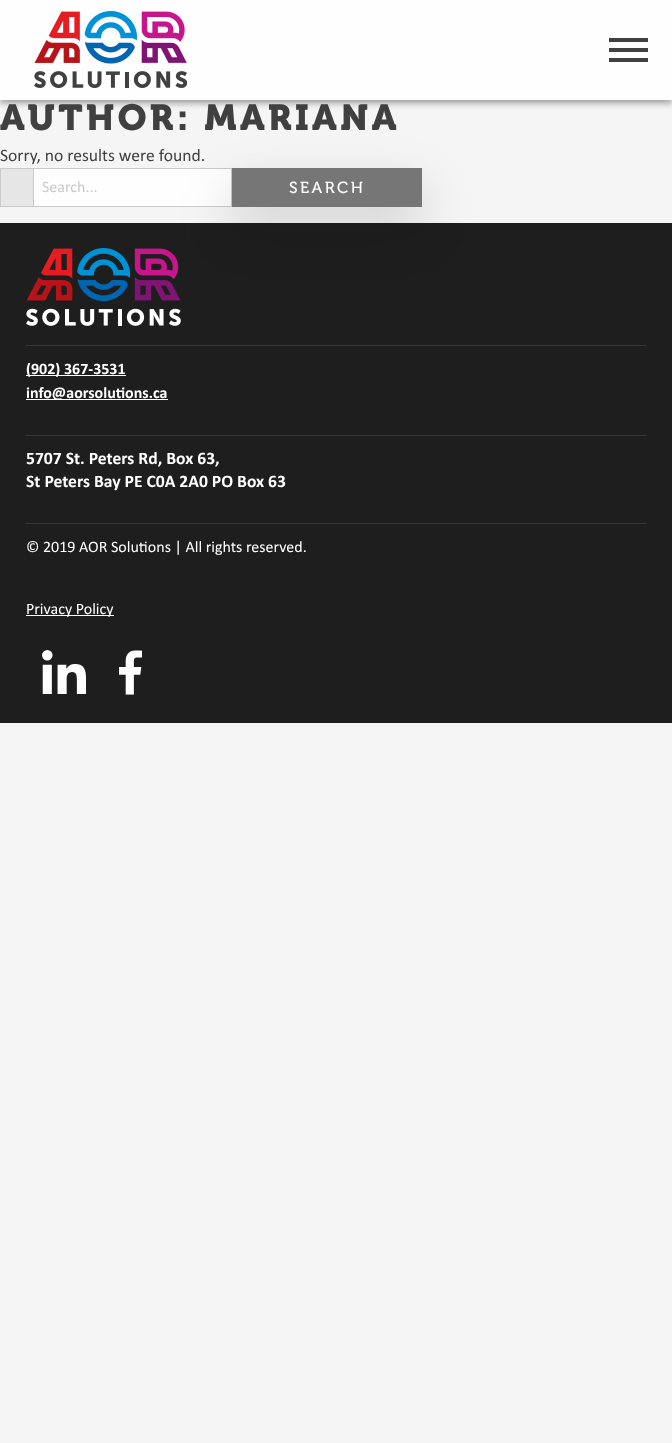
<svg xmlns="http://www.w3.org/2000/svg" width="672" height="1443">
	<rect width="100%" height="100%" fill="#F5F5F5" />
	<rect x="0" y="3" width="672" height="100" fill="#000000" fill-opacity="0.23" filter="blur(3px)" />
	<rect x="0" y="3" width="672" height="100" fill="#000000" fill-opacity="0.16" filter="blur(3px)" />
	<rect x="0" y="0" width="672" height="100" fill="#FEFEFE" />
	<image x="34" y="11" width="153" height="77" href="assets/img1.png" />
	<rect x="609" y="38" width="39" height="4" fill="#404041" />
	<rect x="609" y="48" width="39" height="4" fill="#404041" />
	<rect x="609" y="58" width="39" height="4" fill="#404041" />
	<text x="0" y="130" font-family="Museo" font-size="36" font-weight="600" letter-spacing="3.4" fill="#404041">AUTHOR: MARIANA</text>
	<text x="0" y="161" font-family="Calibri" font-size="17.6" fill="#404041">Sorry, no results were found.</text>
	<rect x="1" y="169" width="32" height="37" fill="#E6E6E6" />
	<rect x="0" y="168" width="33" height="1" fill="#CACACA" />
	<rect x="0" y="206" width="33" height="1" fill="#CACACA" />
	<rect x="0" y="168" width="1" height="39" fill="#CACACA" />
	<rect x="33.5" y="168.5" width="198" height="38" fill="#FEFEFE" stroke="#CACACA" />
	<text x="42" y="192" font-family="Calibri" font-size="16" fill="#CACACA">Search...</text>
	<rect x="0" y="223" width="672" height="500" fill="#1E1E1E" />
	<image x="26" y="248" width="155" height="78" href="assets/img2.png" />
	<rect x="232" y="188" width="190" height="39" fill="#000000" fill-opacity="0.16" filter="blur(25px)" />
	<rect x="232" y="168" width="190" height="39" fill="#767676" />
	<text x="289" y="193" font-family="Museo" font-size="16" letter-spacing="2.5" fill="#FFFFFF">SEARCH</text>
	<rect x="26" y="345" width="620" height="1" fill="#363636" />
	<rect x="26" y="435" width="620" height="1" fill="#363636" />
	<rect x="26" y="375" width="100" height="1" fill="#FFFFFF" />
	<text x="26" y="374" font-family="Calibri" font-size="16" font-weight="700" fill="#FFFFFF">(902) 367-3531</text>
	<rect x="26" y="399" width="142" height="1" fill="#FFFFFF" />
	<text x="26" y="398" font-family="Calibri" font-size="16" font-weight="700" fill="#FFFFFF">info@aorsolutions.ca</text>
	<rect x="26" y="523" width="620" height="1" fill="#363636" />
	<g font-family="Calibri" font-size="17.6" font-weight="700" fill="#FFFFFF">
		<text x="26" y="464">5707 St. Peters Rd, Box 63,</text>
		<text x="26" y="487">St Peters Bay PE C0A 2A0 PO Box 63</text>
	</g>
	<text x="26" y="552" font-family="Calibri" font-size="16" fill="#FFFFFF">© 2019 AOR Solutions | All rights reserved.</text>
	<rect x="26" y="615" width="88" height="1" fill="#FFFFFF" />
	<text x="26" y="614" font-family="Calibri" font-size="16" fill="#FFFFFF">Privacy Policy</text>
	<image x="42" y="650" width="44" height="44" href="assets/img3.png" />
	<image x="119" y="650" width="23" height="45" href="assets/img4.png" />
</svg>
